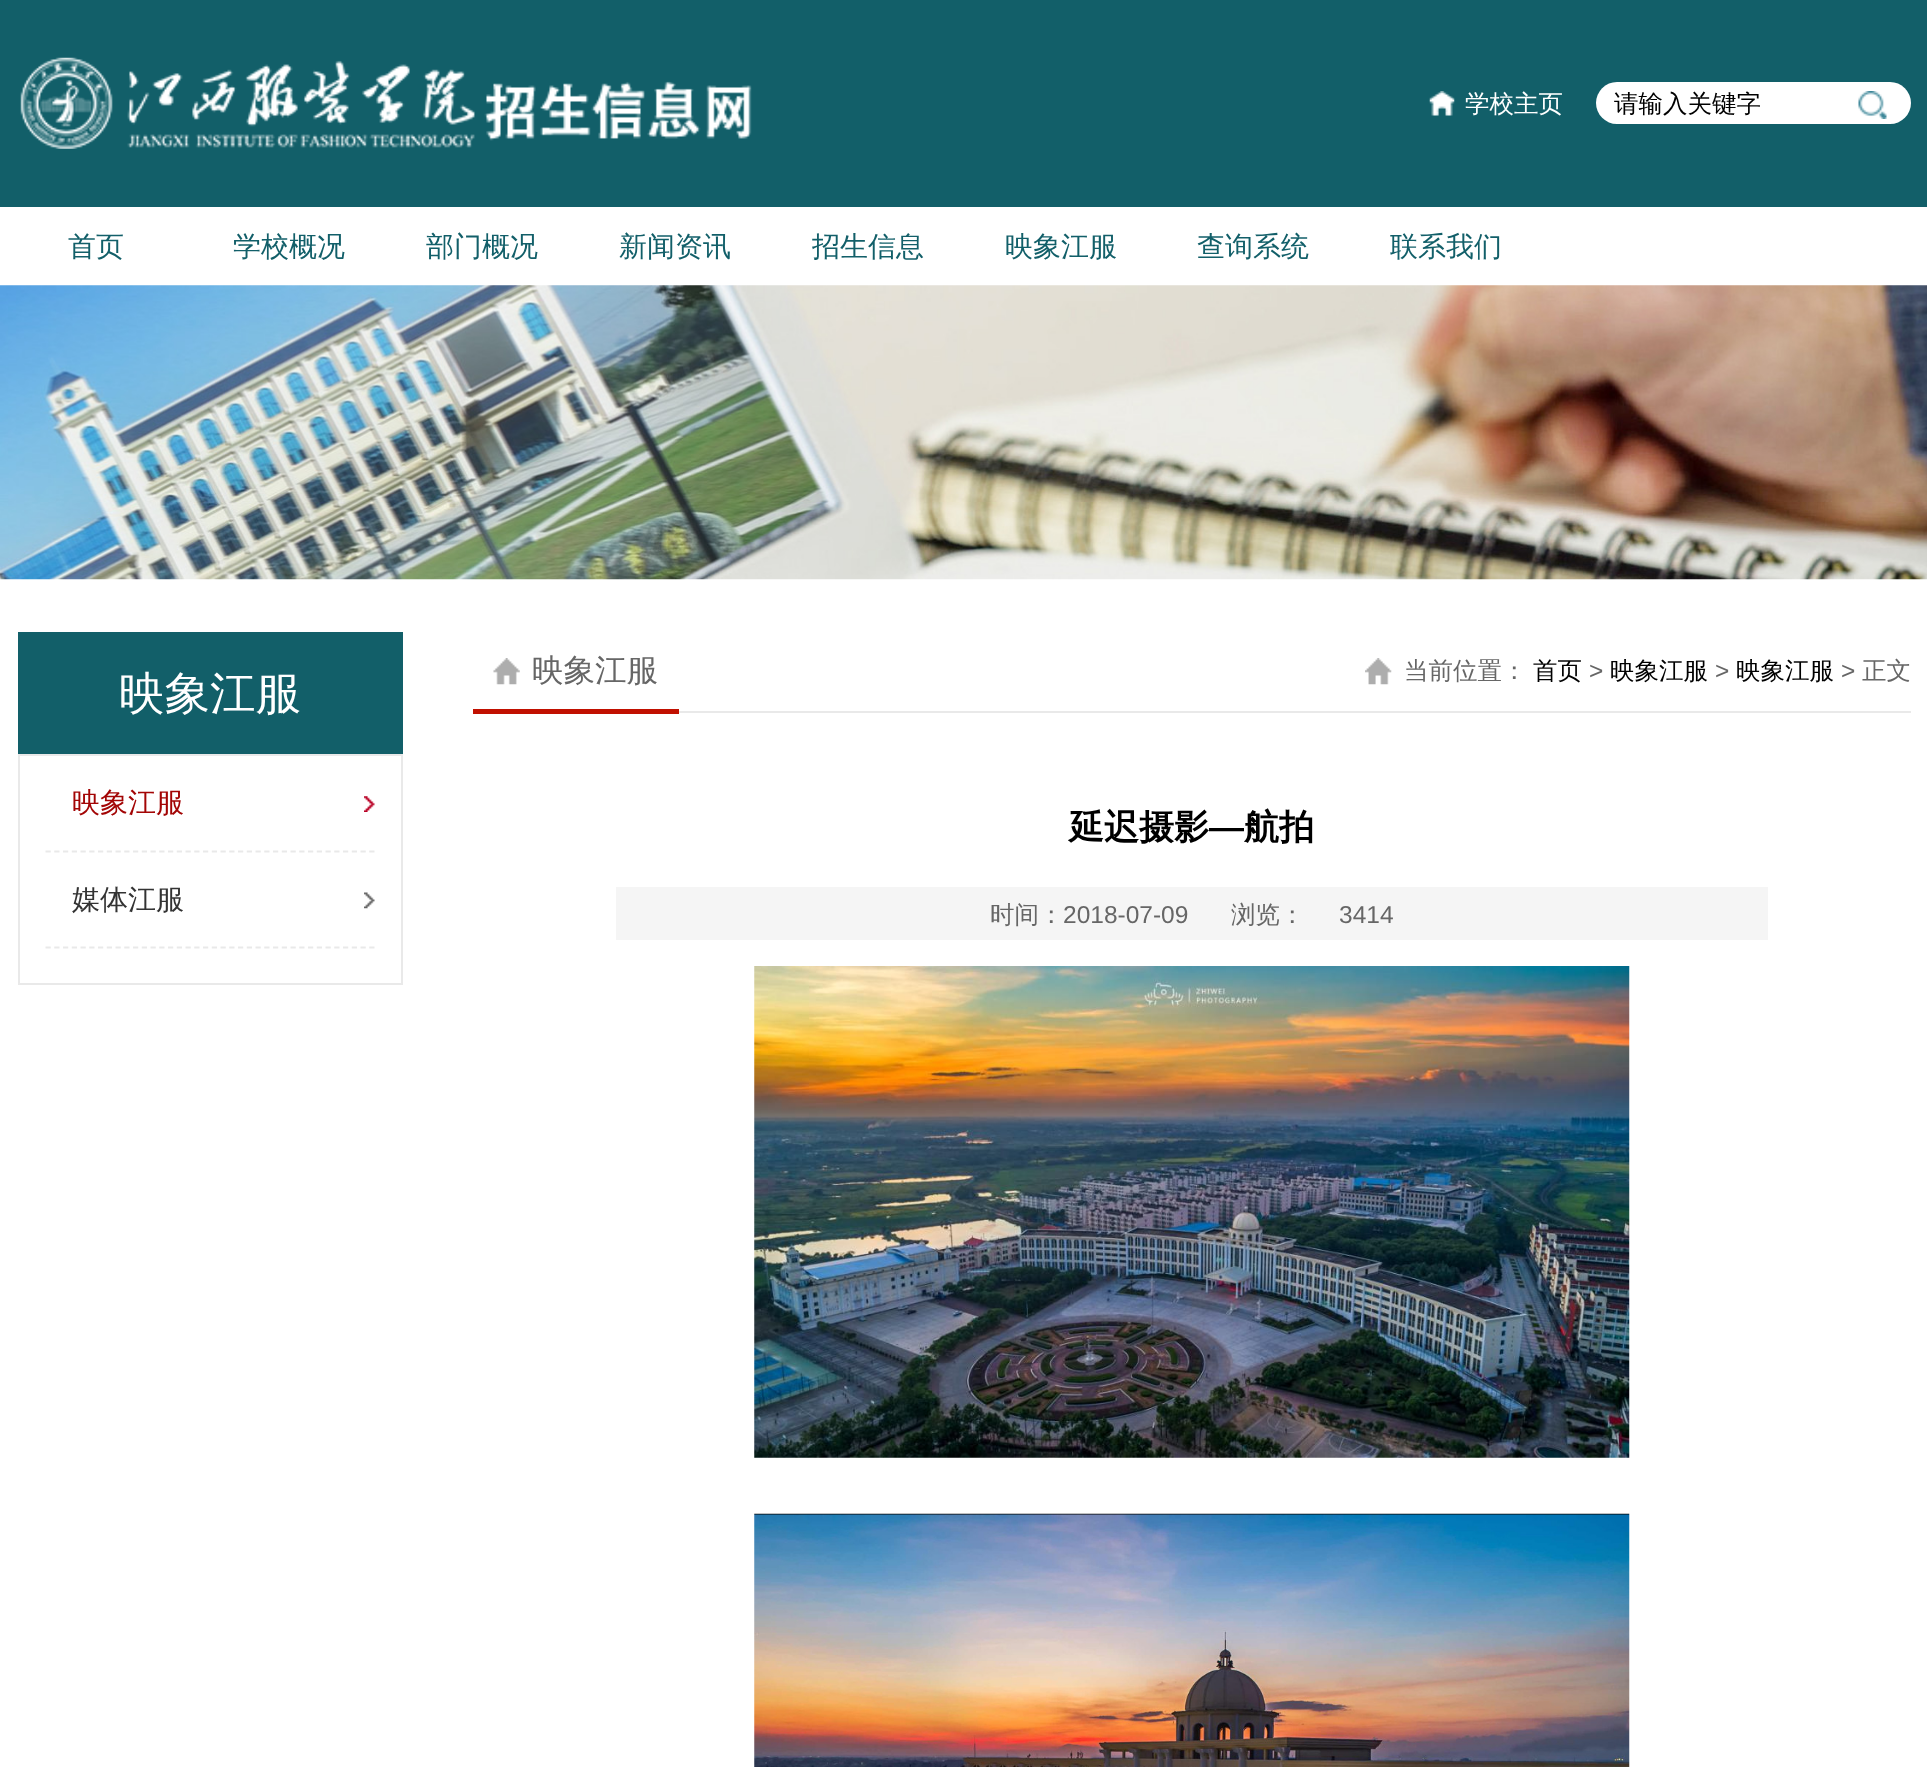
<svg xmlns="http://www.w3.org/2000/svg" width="1927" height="1767">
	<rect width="100%" height="100%" fill="#FFFFFF" />
	<rect x="0" y="0" width="1927" height="207" fill="#125F69" />
	<image x="20" y="57" width="732" height="92" href="assets/img1.png" />
	<image x="1429" y="91" width="26" height="25" href="assets/img2.png" />
	<text x="1465" y="112" font-family="WenQuanYi Zen Hei" font-size="24.5" font-weight="500" fill="#FFFFFF">学校主页</text>
	<rect x="1596" y="82" width="315" height="42" rx="21" fill="#FFFFFF" />
	<text x="1614" y="112" font-family="WenQuanYi Zen Hei" font-size="24.5" font-weight="500" fill="#000000">请输入关键字</text>
	<image x="1858" y="91" width="29" height="28" href="assets/img3.png" />
	<g font-family="WenQuanYi Zen Hei" font-size="28" font-weight="500" fill="#125F69">
		<text x="68" y="256">首页</text>
		<text x="233" y="256">学校概况</text>
		<text x="426" y="256">部门概况</text>
		<text x="619" y="256">新闻资讯</text>
		<text x="812" y="256">招生信息</text>
		<text x="1005" y="256">映象江服</text>
		<text x="1197" y="256">查询系统</text>
		<text x="1390" y="256">联系我们</text>
	</g>
	<image x="0" y="285" width="1927" height="295" href="assets/img4.png" />
	<rect x="18" y="632" width="385" height="122" fill="#125F69" />
	<text x="119" y="709" font-family="WenQuanYi Zen Hei" font-size="45.5" font-weight="500" fill="#FFFFFF">映象江服</text>
	<rect x="19" y="755" width="383" height="229" fill="none" stroke="#E9E9E9" stroke-width="2" />
	<path d="M45.5 851.5H374.5" fill="none" stroke="#E9E9E9" stroke-width="1.8" stroke-dasharray="5.25 3.5" />
	<image x="364" y="796" width="11" height="16" href="assets/img5.png" />
	<text x="72" y="812" font-family="WenQuanYi Zen Hei" font-size="28" font-weight="500" fill="#A30505">映象江服</text>
	<path d="M45.5 947.5H374.5" fill="none" stroke="#E9E9E9" stroke-width="1.8" stroke-dasharray="5.25 3.5" />
	<image x="364" y="892" width="11" height="17" href="assets/img6.png" />
	<text x="72" y="909" font-family="WenQuanYi Zen Hei" font-size="28" font-weight="500" fill="#333333">媒体江服</text>
	<rect x="679" y="711" width="1232" height="2" fill="#E9E9E9" />
	<rect x="473" y="709" width="206" height="5" fill="#C11000" />
	<image x="493" y="658" width="27" height="27" href="assets/img7.png" />
	<text x="532" y="681" font-family="WenQuanYi Zen Hei" font-size="31.5" font-weight="500" fill="#666666">映象江服</text>
	<image x="1365" y="658" width="27" height="27" href="assets/img8.png" />
	<text x="1404" y="679" font-family="WenQuanYi Zen Hei" font-size="24.5" font-weight="500" fill="#666666">当前位置：</text>
	<text x="1533" y="679" font-family="WenQuanYi Zen Hei" font-size="24.5" font-weight="500" fill="#000000">首页</text>
	<text x="1589" y="679" font-family="Liberation Sans" font-size="24.5" fill="#666666">&gt;</text>
	<text x="1610" y="679" font-family="WenQuanYi Zen Hei" font-size="24.5" font-weight="500" fill="#000000">映象江服</text>
	<text x="1715" y="679" font-family="Liberation Sans" font-size="24.5" fill="#666666">&gt;</text>
	<text x="1736" y="679" font-family="WenQuanYi Zen Hei" font-size="24.5" font-weight="500" fill="#000000">映象江服</text>
	<text x="1841" y="679" font-family="Liberation Sans" font-size="24.5" fill="#666666">&gt;</text>
	<text x="1862" y="679" font-family="WenQuanYi Zen Hei" font-size="24.5" font-weight="500" fill="#666666">正文</text>
	<text x="1069" y="839" font-family="WenQuanYi Zen Hei" font-size="35" font-weight="700" fill="#000000">延迟摄影</text>
	<text x="1209" y="839" font-family="Liberation Sans" font-size="35" font-weight="700" fill="#000000">—</text>
	<text x="1244" y="839" font-family="WenQuanYi Zen Hei" font-size="35" font-weight="700" fill="#000000">航拍</text>
	<rect x="616" y="887" width="1152" height="53" fill="#F5F5F5" />
	<text x="990" y="923" font-family="WenQuanYi Zen Hei" font-size="24.5" font-weight="500" fill="#666666">时间：</text>
	<text x="1063" y="923" font-family="Liberation Sans" font-size="24.5" fill="#666666">2018-07-09</text>
	<text x="1231" y="923" font-family="WenQuanYi Zen Hei" font-size="24.5" font-weight="500" fill="#666666">浏览：</text>
	<text x="1339" y="923" font-family="Liberation Sans" font-size="24.5" fill="#666666">3414</text>
	<image x="754" y="966" width="876" height="492" href="assets/img9.png" />
	<image x="754" y="1513" width="876" height="254" href="assets/img10.png" />
</svg>
